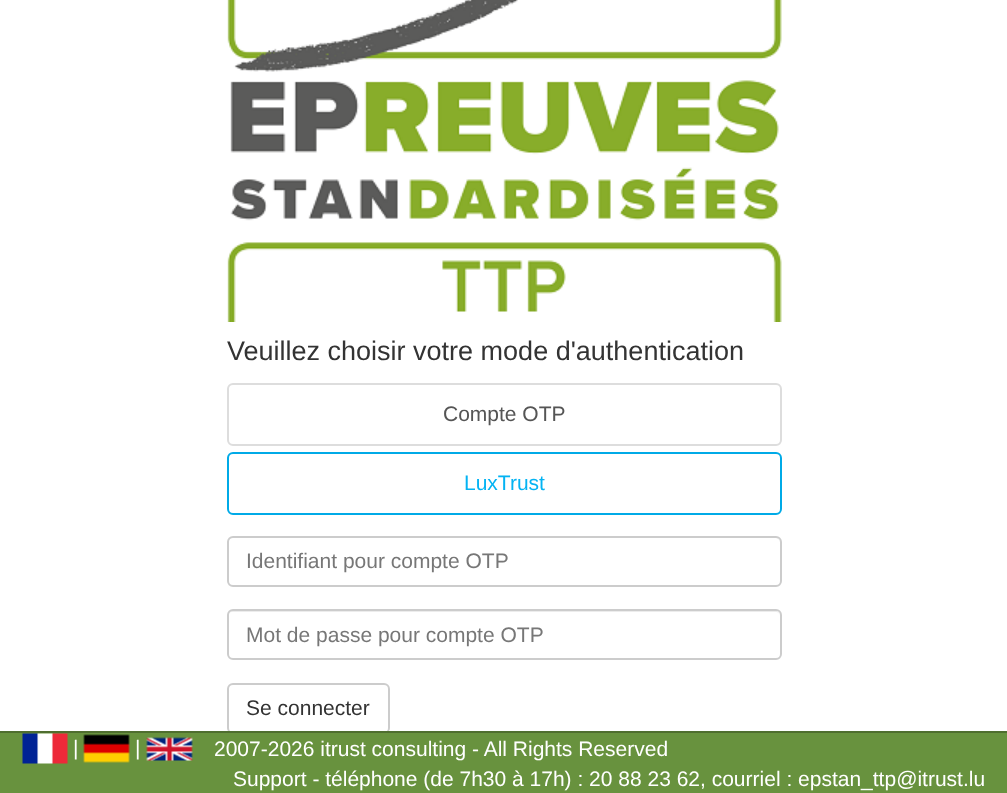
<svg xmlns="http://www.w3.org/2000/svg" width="1007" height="793">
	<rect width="100%" height="100%" fill="#FFFFFF" />
	<image x="227" y="0" width="555" height="322" href="assets/img1.png" />
	<text x="227" y="360" font-family="Liberation Sans" font-size="27" fill="#333333">Veuillez choisir votre mode d'authentication</text>
	<rect x="228" y="384" width="553" height="61" rx="5" fill="none" stroke="#DDDDDD" stroke-width="2" />
	<text x="443" y="421" font-family="Liberation Sans" font-size="21" fill="#555555">Compte OTP</text>
	<rect x="228" y="453" width="553" height="61" rx="5" fill="none" stroke="#00AAE7" stroke-width="2" />
	<text x="464" y="490" font-family="Liberation Sans" font-size="21" fill="#03B3F3">LuxTrust</text>
	<path d="M232 538H776C778 538 780 541 780 543C780 540 778 537 775 537H233C230 537 228 540 228 543C228 541 230 538 232 538Z" fill="#ECECEC" />
	<rect x="228" y="537" width="553" height="49" rx="5" fill="none" stroke="#CCCCCC" stroke-width="2" />
	<text x="246" y="568" font-family="Liberation Sans" font-size="21" fill="#777777">Identifiant pour compte OTP</text>
	<path d="M232 612H776C778 612 780 614 780 616C780 613 778 611 775 611H233C230 611 228 613 228 616C228 614 230 612 232 612Z" fill="#ECECEC" />
	<rect x="228" y="610" width="553" height="49" rx="5" fill="none" stroke="#CCCCCC" stroke-width="2" />
	<text x="246" y="642" font-family="Liberation Sans" font-size="21" fill="#777777">Mot de passe pour compte OTP</text>
	<rect x="228" y="684" width="161" height="49" rx="5" fill="none" stroke="#CCCCCC" stroke-width="2" />
	<text x="246" y="715" font-family="Liberation Sans" font-size="21" fill="#333333">Se connecter</text>
	<rect x="0" y="733" width="1007" height="60" fill="#68923E" />
	<rect x="0" y="731" width="1007" height="2" fill="#4F6E2F" />
	<image x="22" y="733" width="46" height="31" href="assets/img2.png" />
	<text x="73" y="755" font-family="Liberation Sans" font-size="21" fill="#FFFFFF">|</text>
	<image x="83" y="734" width="47" height="29" href="assets/img3.png" />
	<text x="135" y="755" font-family="Liberation Sans" font-size="21" fill="#FFFFFF">|</text>
	<image x="146" y="737" width="47" height="24" href="assets/img4.png" />
	<g font-family="Liberation Sans" font-size="21" fill="#FFFFFF">
		<text x="214" y="756">2007-2026 itrust consulting - All Rights Reserved</text>
		<text x="233" y="786">Support - téléphone (de 7h30 à 17h) : 20 88 23 62, courriel : epstan_ttp@itrust.lu</text>
	</g>
</svg>
